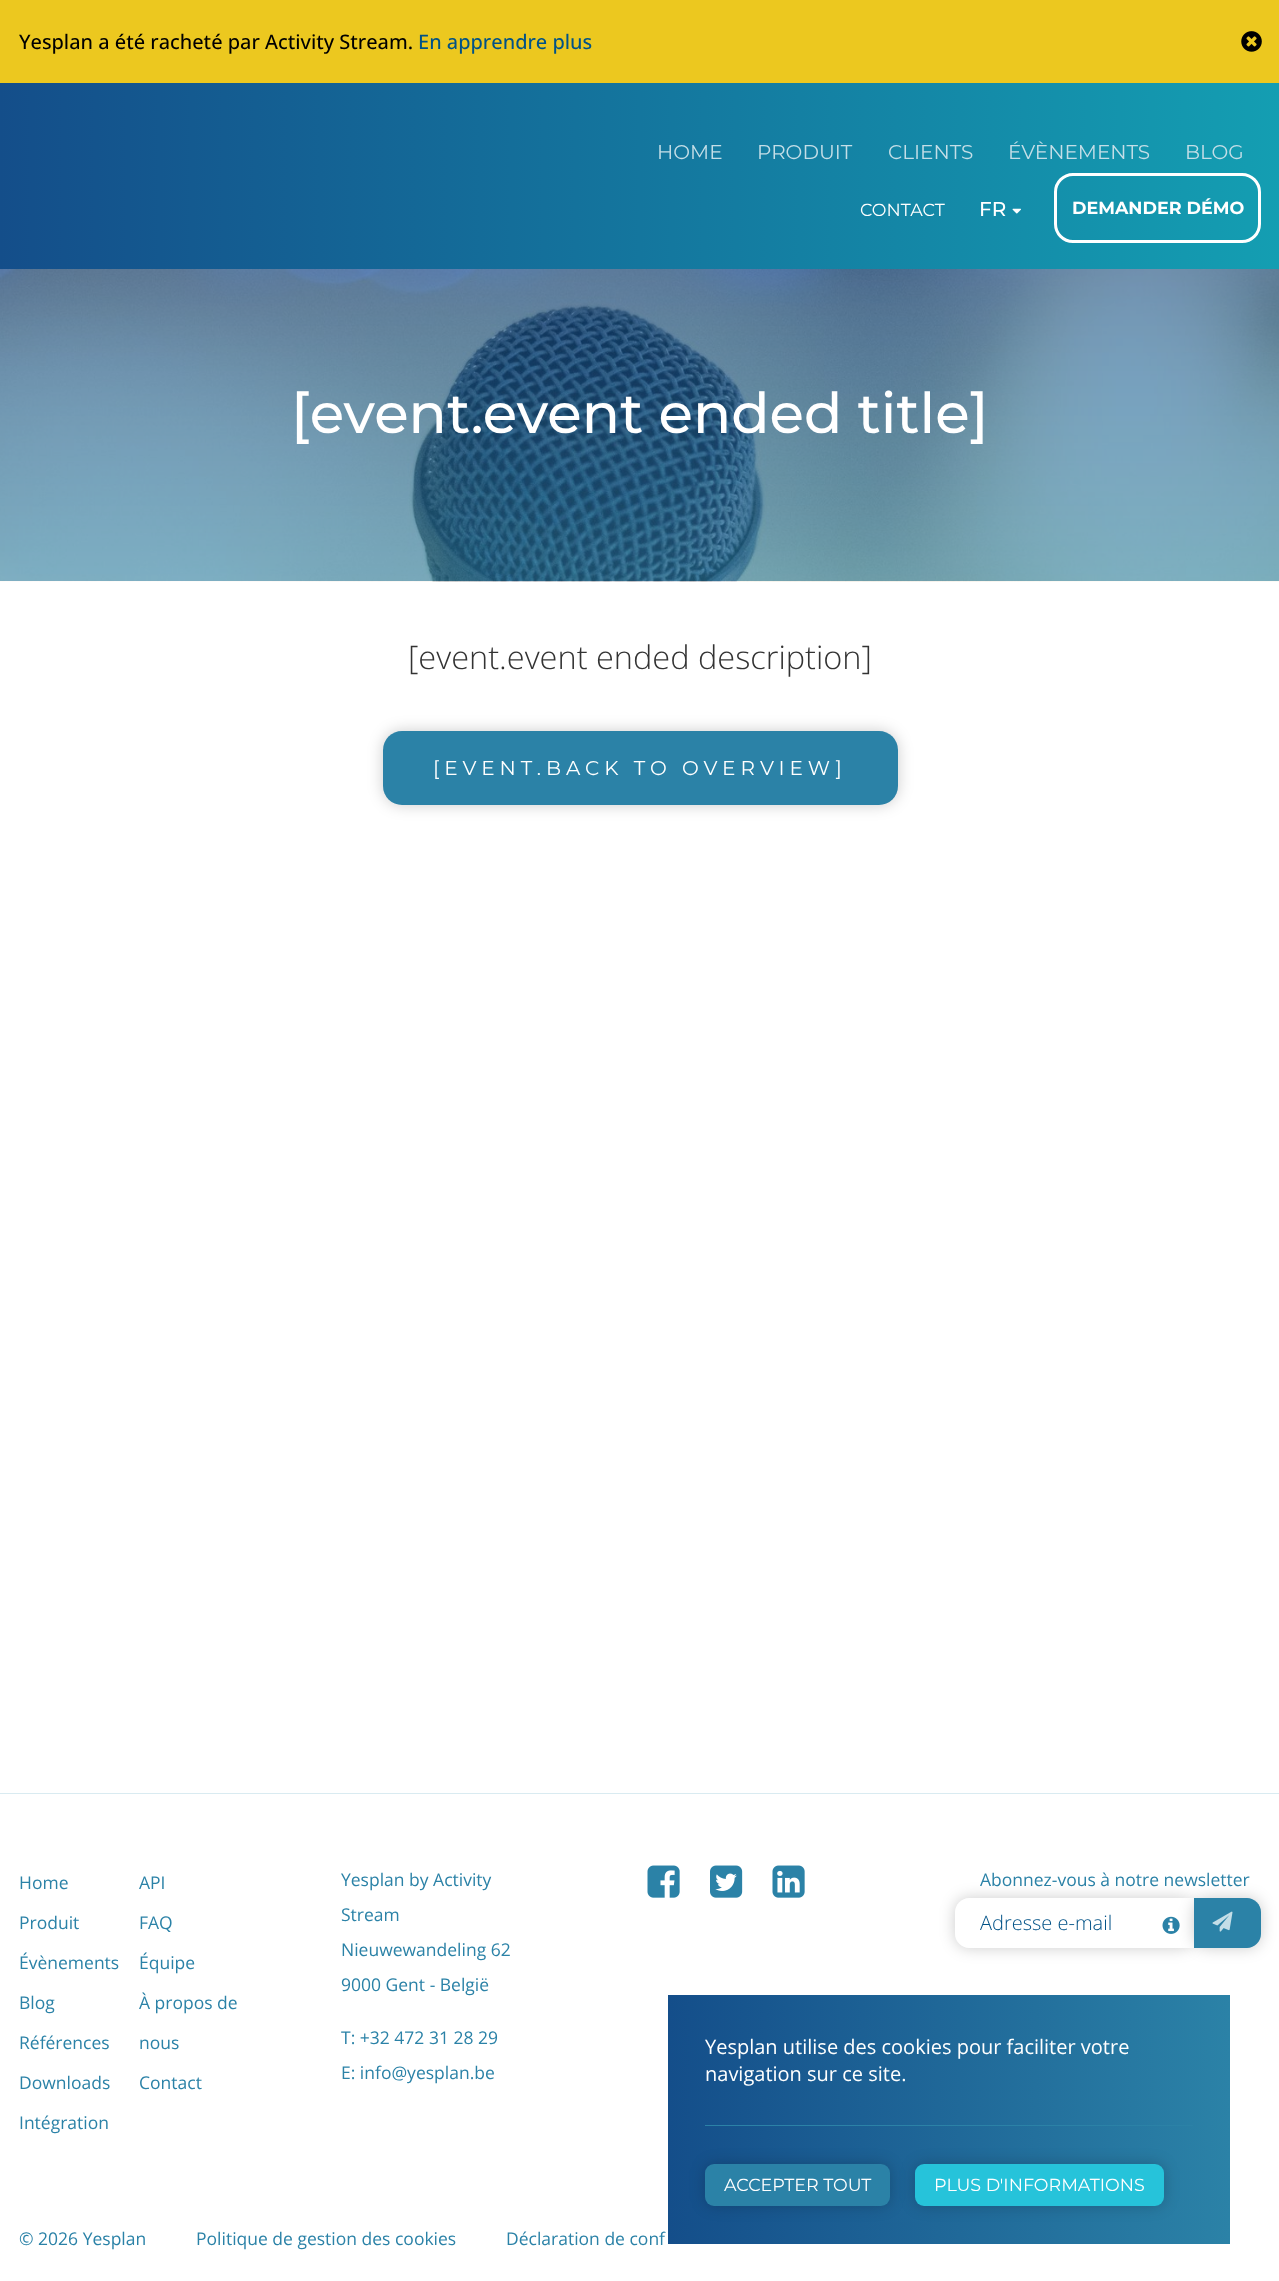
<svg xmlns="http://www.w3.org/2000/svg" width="1279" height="2281">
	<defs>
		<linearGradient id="g1" gradientUnits="userSpaceOnUse" x1="0" y1="176" x2="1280" y2="176"><stop offset="0" stop-color="#144E8A" /><stop offset="1" stop-color="#149EB2" /></linearGradient>
		<linearGradient id="g2" gradientUnits="userSpaceOnUse" x1="668" y1="2119" x2="1230" y2="2119"><stop offset="0" stop-color="#144E8A" /><stop offset="1" stop-color="#2B82A7" /></linearGradient>
	</defs>
	<rect width="100%" height="100%" fill="#FFFFFF" />
	<rect x="0" y="0" width="1279" height="83" fill="#ECC81F" />
	<text x="19" y="49" font-family="Open Sans" font-size="20" font-weight="500" fill="#000000">Yesplan a été racheté par Activity Stream.</text>
	<text x="418" y="49" font-family="Open Sans" font-size="20" font-weight="500" fill="#005287">En apprendre plus</text>
	<image x="1241" y="31" width="21" height="21" href="assets/img1.png" />
	<rect x="0" y="83" width="1279" height="186" fill="url(#g1)" />
	<g font-family="Montserrat" font-size="20" fill="#C4DEE7">
		<text x="657" y="159">HOME</text>
		<text x="757" y="159">PRODUIT</text>
		<text x="888" y="159">CLIENTS</text>
		<text x="1008" y="159">ÉVÈNEMENTS</text>
		<text x="1185" y="159">BLOG</text>
	</g>
	<text x="860" y="216" font-family="Montserrat" font-size="17.5" fill="#FFFFFF">CONTACT</text>
	<text x="979" y="216" font-family="Montserrat" font-size="20" font-weight="500" fill="#FFFFFF">FR</text>
	<image x="1012" y="208" width="9" height="6" href="assets/img2.png" />
	<rect x="1055.5" y="174.5" width="204" height="67" rx="17.5" fill="none" stroke="#FFFFFF" stroke-width="3" />
	<text x="1072" y="214" font-family="Montserrat" font-size="17.5" font-weight="700" fill="#FFFFFF">DEMANDER DÉMO</text>
	<image x="0" y="269" width="1279" height="313" href="assets/img3.png" />
	<text x="291" y="433" font-family="Montserrat" font-size="56.25" font-weight="500" fill="#FFFFFF">[event.event ended title]</text>
	<text x="408" y="669" font-family="Open Sans" font-size="32.5" font-weight="300" fill="#333333">[event.event ended description]</text>
	<rect x="383" y="731" width="515" height="74" rx="19" fill="#000000" fill-opacity="0.2" filter="blur(7.5px)" />
	<rect x="383" y="731" width="515" height="74" rx="19" fill="#2B82A7" />
	<text x="433" y="775" font-family="Montserrat" font-size="20" letter-spacing="5" fill="#FFFFFF">[EVENT.BACK TO OVERVIEW]</text>
	<rect x="668" y="1995" width="562" height="249" fill="url(#g2)" />
	<g font-family="Open Sans" font-size="20" fill="#FFFFFF">
		<text x="705" y="2054">Yesplan utilise des cookies pour faciliter votre</text>
		<text x="705" y="2081">navigation sur ce site.</text>
	</g>
	<rect x="705" y="2125" width="488" height="1" fill="#2B82A7" />
	<rect x="705" y="2164" width="185" height="42" rx="9" fill="#000000" fill-opacity="0.2" filter="blur(7.5px)" />
	<rect x="705" y="2164" width="185" height="42" rx="9" fill="#2B82A7" />
	<text x="724" y="2191" font-family="Montserrat" font-size="17.5" fill="#FFFFFF">ACCEPTER TOUT</text>
	<rect x="915" y="2164" width="249" height="42" rx="9" fill="#000000" fill-opacity="0.2" filter="blur(7.5px)" />
	<rect x="915" y="2164" width="249" height="42" rx="9" fill="#26C3DA" />
	<text x="934" y="2191" font-family="Montserrat" font-size="17.5" fill="#FFFFFF">PLUS D'INFORMATIONS</text>
	<rect x="0" y="1793" width="1279" height="1" fill="#D9EBF1" />
	<g font-family="Open Sans" font-size="17.5" fill="#2B82A7">
		<text x="19" y="1889">Home</text>
		<text x="139" y="1889">API</text>
		<text x="19" y="1929">Produit</text>
		<text x="139" y="1929">FAQ</text>
		<text x="19" y="1969">Évènements</text>
		<text x="139" y="1969">Équipe</text>
		<text x="19" y="2009">Blog</text>
		<text x="139" y="2009">À propos de</text>
		<text x="139" y="2049">nous</text>
		<text x="19" y="2049">Références</text>
		<text x="19" y="2089">Downloads</text>
		<text x="139" y="2089">Contact</text>
		<text x="19" y="2129">Intégration</text>
		<text x="341" y="1886">Yesplan by Activity</text>
		<text x="341" y="1921">Stream</text>
		<text x="341" y="1956">Nieuwewandeling 62</text>
		<text x="341" y="1991">9000 Gent - België</text>
		<text x="341" y="2044">T: +32 472 31 28 29</text>
		<text x="341" y="2079">E: info@yesplan.be</text>
	</g>
	<image x="647" y="1865" width="33" height="33" href="assets/img4.png" />
	<image x="710" y="1865" width="33" height="33" href="assets/img5.png" />
	<image x="772" y="1865" width="33" height="33" href="assets/img6.png" />
	<text x="980" y="1886" font-family="Open Sans" font-size="17.5" fill="#2B82A7">Abonnez-vous à notre newsletter</text>
	<rect x="955" y="1898" width="239" height="50" rx="14" fill="#000000" fill-opacity="0.2" filter="blur(7.5px)" />
	<path d="M969 1898H1194V1948H969C961.5 1948 955 1941.5 955 1934V1912C955 1904.5 961.5 1898 969 1898Z" fill="#FFFFFF" />
	<text x="980" y="1930" font-family="Open Sans" font-size="20" font-weight="300" fill="#005287">Adresse e-mail</text>
	<rect x="1194" y="1898" width="67" height="50" rx="14" fill="#000000" fill-opacity="0.2" filter="blur(7.5px)" />
	<path d="M1194 1898H1247C1254.5 1898 1261 1904.5 1261 1912V1934C1261 1941.5 1254.5 1948 1247 1948H1194Z" fill="#2B82A7" />
	<image x="1212" y="1911" width="21" height="21" href="assets/img7.png" />
	<image x="1162" y="1916" width="18" height="18" href="assets/img8.png" />
	<g font-family="Open Sans" font-size="17.5" fill="#2B82A7">
		<text x="19" y="2245">© 2026 Yesplan</text>
		<text x="196" y="2245">Politique de gestion des cookies</text>
		<text x="506" y="2245">Déclaration de conf</text>
	</g>
</svg>
